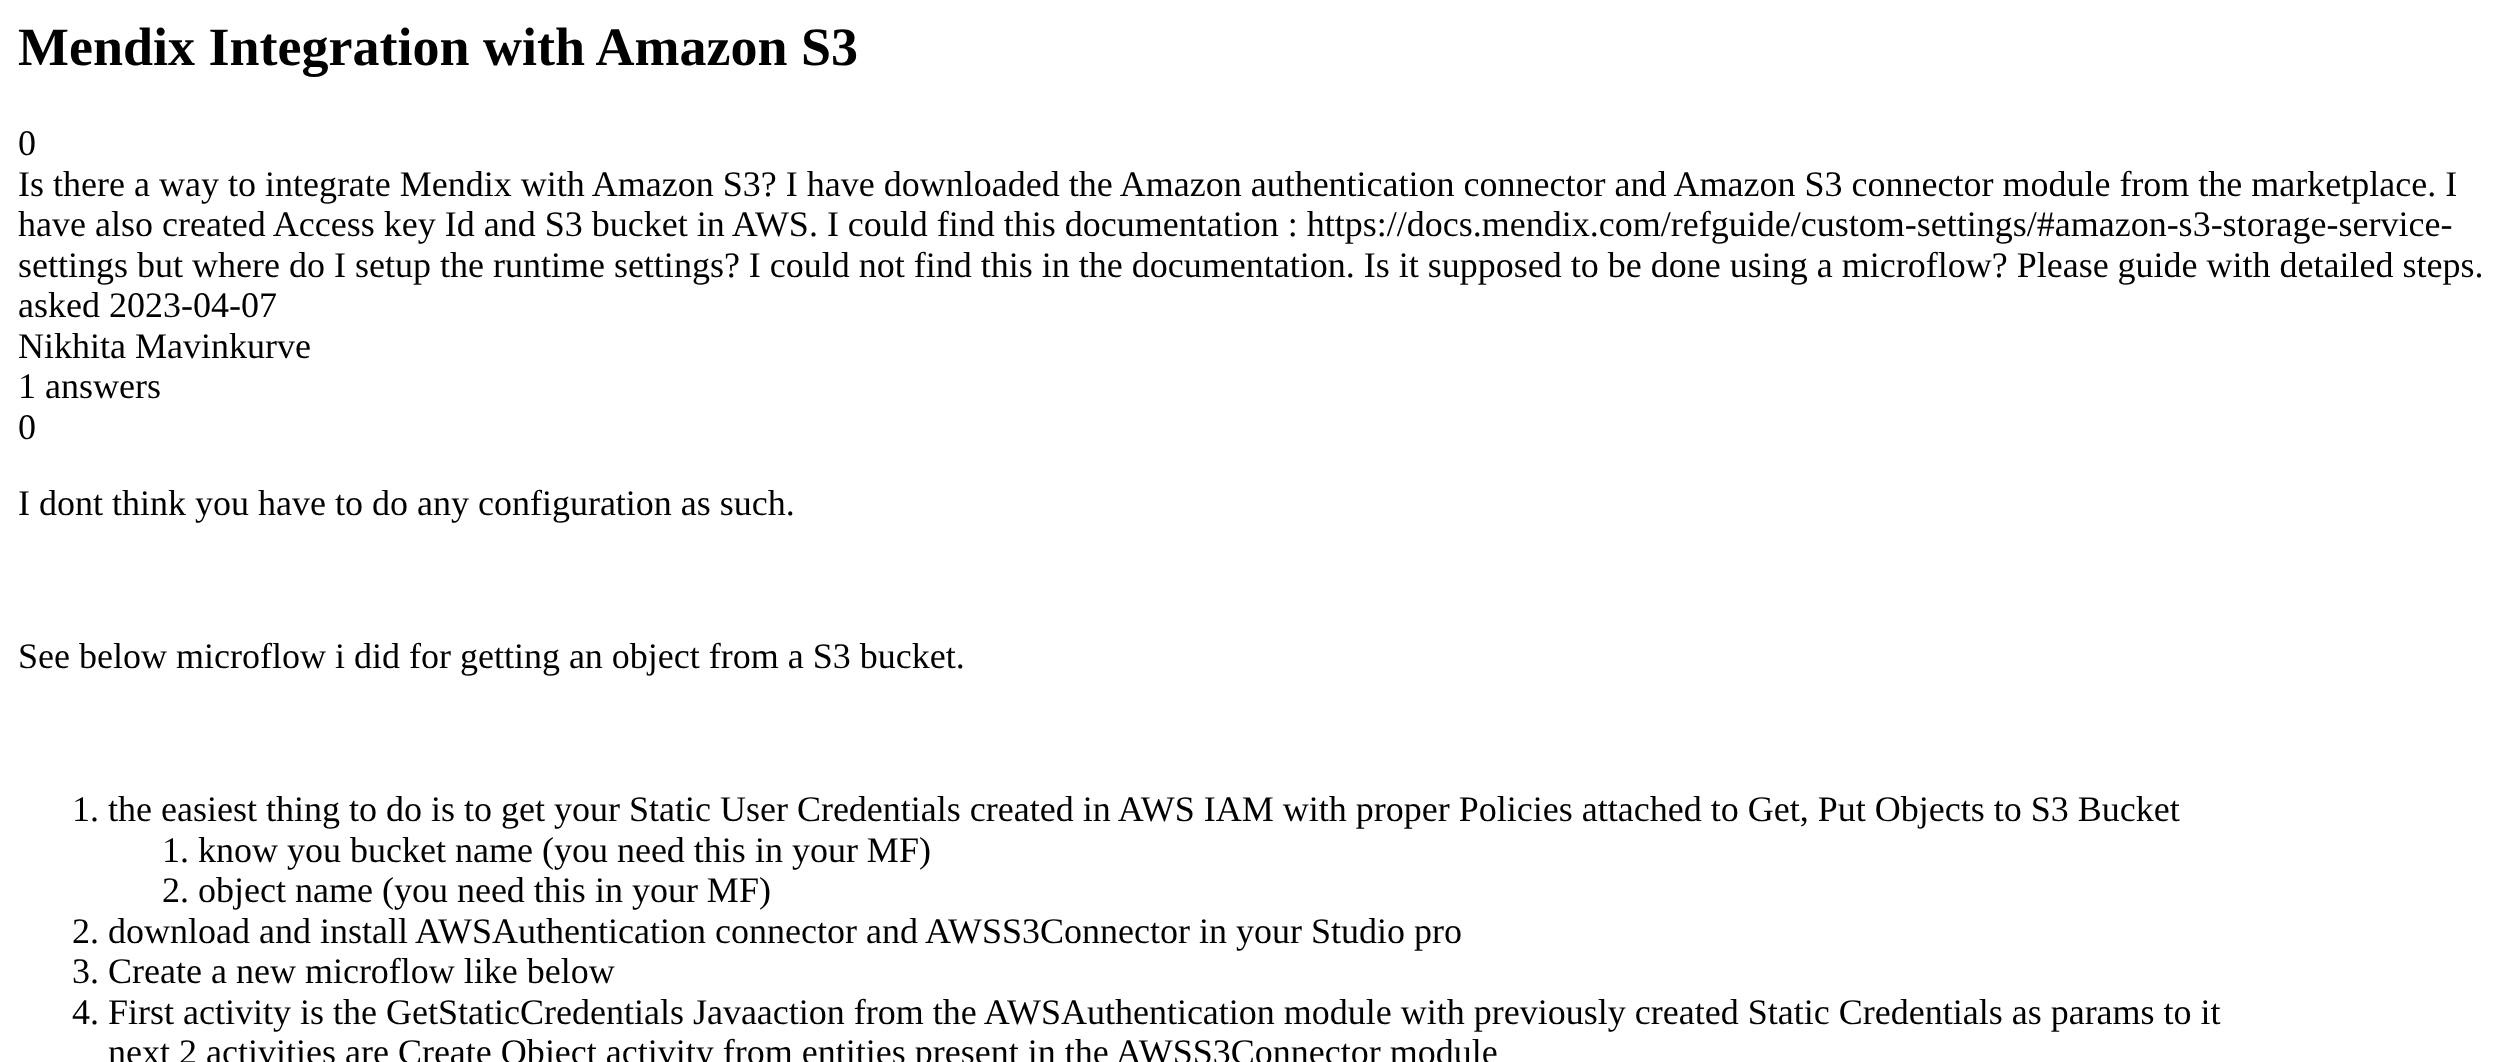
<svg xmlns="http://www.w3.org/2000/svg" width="2505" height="1062">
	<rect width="100%" height="100%" fill="#FFFFFF" />
	<text x="18" y="65" font-family="Liberation Serif" font-size="54" font-weight="700" fill="#000000">Mendix Integration with Amazon S3</text>
	<g font-family="Liberation Serif" font-size="36" fill="#000000">
		<text x="18" y="155">0</text>
		<text x="18" y="196">Is there a way to integrate Mendix with Amazon S3? I have downloaded the Amazon authentication connector and Amazon S3 connector module from the marketplace. I</text>
		<text x="18" y="236">have also created Access key Id and S3 bucket in AWS. I could find this documentation : https://docs.mendix.com/refguide/custom-settings/#amazon-s3-storage-service-</text>
		<text x="18" y="277">settings but where do I setup the runtime settings? I could not find this in the documentation. Is it supposed to be done using a microflow? Please guide with detailed steps.</text>
		<text x="18" y="317">asked 2023-04-07</text>
		<text x="18" y="358">Nikhita Mavinkurve</text>
		<text x="18" y="398">1 answers</text>
		<text x="18" y="439">0</text>
		<text x="18" y="515">I dont think you have to do any configuration as such.</text>
		<text x="18" y="668">See below microflow i did for getting an object from a S3 bucket.</text>
		<text x="72" y="821">1. the easiest thing to do is to get your Static User Credentials created in AWS IAM with proper Policies attached to Get, Put Objects to S3 Bucket</text>
		<text x="162" y="862">1. know you bucket name (you need this in your MF)</text>
		<text x="162" y="902">2. object name (you need this in your MF)</text>
		<text x="72" y="943">2. download and install AWSAuthentication connector and AWSS3Connector in your Studio pro</text>
		<text x="72" y="983">3. Create a new microflow like below</text>
		<text x="72" y="1024">4. First activity is the GetStaticCredentials Javaaction from the AWSAuthentication module with previously created Static Credentials as params to it</text>
		<text x="108" y="1064">next 2 activities are Create Object activity from entities present in the AWSS3Connector module</text>
	</g>
</svg>
